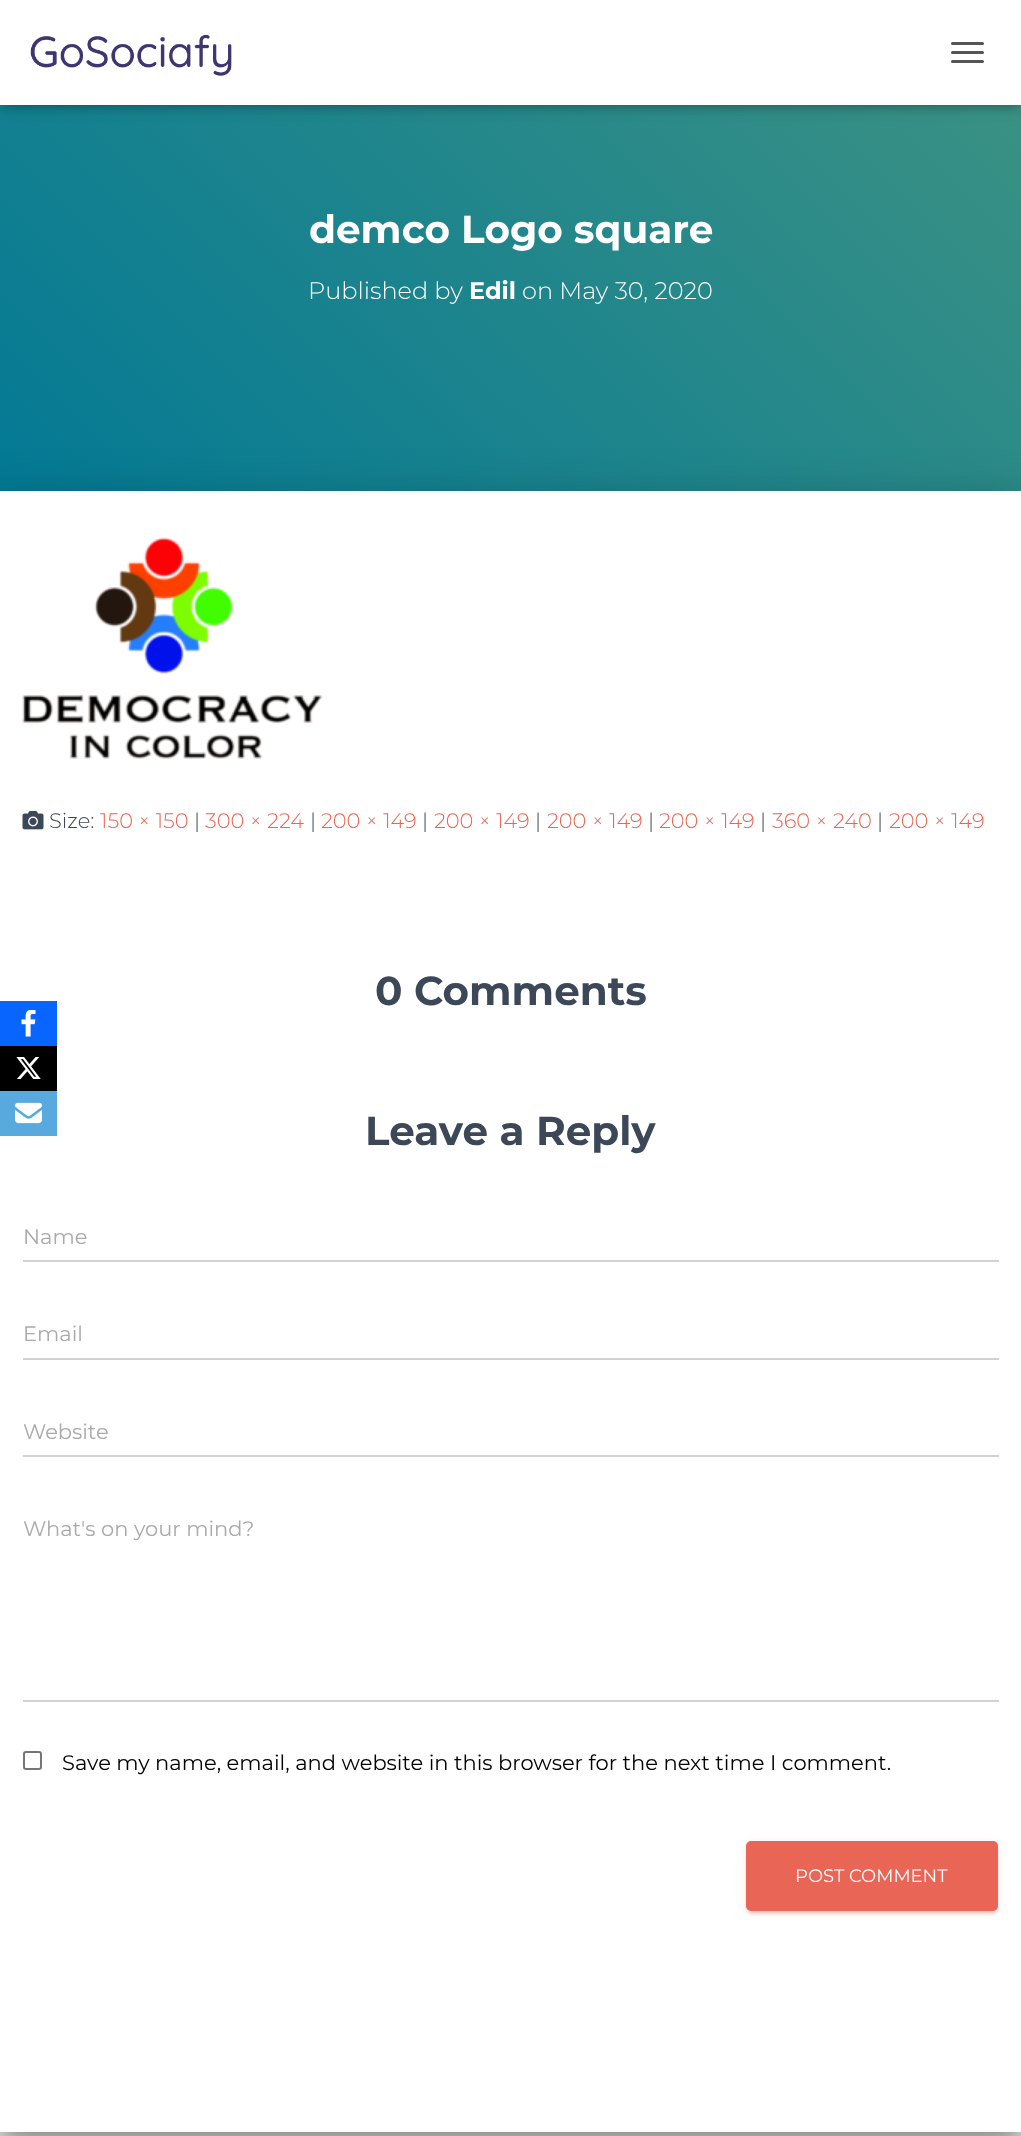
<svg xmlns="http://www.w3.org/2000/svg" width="1021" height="2136">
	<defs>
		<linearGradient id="g1" gradientUnits="userSpaceOnUse" x1="86" y1="666" x2="936" y2="-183"><stop offset="0" stop-color="#007896" /><stop offset="1" stop-color="#429481" /></linearGradient>
	</defs>
	<rect width="100%" height="100%" fill="#E5E5E5" />
	<rect x="0" y="105" width="1021" height="386" fill="url(#g1)" />
	<rect x="3" y="9" width="1016" height="99" fill="#000000" fill-opacity="0.1" filter="blur(4px)" />
	<rect x="0" y="2" width="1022" height="105" fill="#000000" fill-opacity="0.12" filter="blur(7.5px)" />
	<rect x="9" y="11" width="1004" height="87" fill="#000000" fill-opacity="0.42" filter="blur(7.5px)" />
	<rect x="0" y="0" width="1021" height="105" fill="#FFFFFF" />
	<image x="30" y="34" width="202" height="42" href="assets/img1.png" />
	<rect x="951" y="42" width="33" height="3" rx="1.5" fill="#555555" />
	<rect x="951" y="51" width="33" height="3" rx="1.5" fill="#555555" />
	<rect x="951" y="60" width="33" height="3" rx="1.5" fill="#555555" />
	<text x="309" y="243" font-family="Montserrat" font-size="39" font-weight="700" fill="#FFFFFF">demco Logo square</text>
	<text x="308" y="299" font-family="Montserrat" font-size="24" font-weight="300" fill="#FFFFFF">Published by</text>
	<text x="469" y="299" font-family="Montserrat" font-size="24" font-weight="700" fill="#FFFFFF">Edil</text>
	<text x="522" y="299" font-family="Montserrat" font-size="24" font-weight="300" fill="#FFFFFF">on May 30, 2020</text>
	<rect x="8" y="510" width="1006" height="1626" fill="#000000" fill-opacity="0.2" filter="blur(7.5px)" />
	<rect x="-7" y="492" width="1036" height="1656" fill="#000000" fill-opacity="0.12" filter="blur(22.5px)" />
	<rect x="-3" y="512" width="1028" height="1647" fill="#000000" fill-opacity="0.14" filter="blur(18px)" />
	<rect x="0" y="491" width="1021" height="1641" fill="#FFFFFF" />
	<image x="22" y="537" width="301" height="222" href="assets/img2.png" />
	<image x="22" y="810" width="22" height="20" href="assets/img3.png" />
	<text x="49" y="828" font-family="Montserrat" font-size="21" font-weight="300" fill="#3C4858">Size:</text>
	<text x="100" y="828" font-family="Montserrat" font-size="21" font-weight="300" fill="#E96656">150 × 150</text>
	<text x="194" y="828" font-family="Montserrat" font-size="21" font-weight="300" fill="#3C4858">|</text>
	<text x="205" y="828" font-family="Montserrat" font-size="21" font-weight="300" fill="#E96656">300 × 224</text>
	<text x="310" y="828" font-family="Montserrat" font-size="21" font-weight="300" fill="#3C4858">|</text>
	<text x="321" y="828" font-family="Montserrat" font-size="21" font-weight="300" fill="#E96656">200 × 149</text>
	<text x="422" y="828" font-family="Montserrat" font-size="21" font-weight="300" fill="#3C4858">|</text>
	<text x="434" y="828" font-family="Montserrat" font-size="21" font-weight="300" fill="#E96656">200 × 149</text>
	<text x="535" y="828" font-family="Montserrat" font-size="21" font-weight="300" fill="#3C4858">|</text>
	<text x="547" y="828" font-family="Montserrat" font-size="21" font-weight="300" fill="#E96656">200 × 149</text>
	<text x="648" y="828" font-family="Montserrat" font-size="21" font-weight="300" fill="#3C4858">|</text>
	<text x="659" y="828" font-family="Montserrat" font-size="21" font-weight="300" fill="#E96656">200 × 149</text>
	<text x="760" y="828" font-family="Montserrat" font-size="21" font-weight="300" fill="#3C4858">|</text>
	<text x="772" y="828" font-family="Montserrat" font-size="21" font-weight="300" fill="#E96656">360 × 240</text>
	<text x="877" y="828" font-family="Montserrat" font-size="21" font-weight="300" fill="#3C4858">|</text>
	<text x="889" y="828" font-family="Montserrat" font-size="21" font-weight="300" fill="#E96656">200 × 149</text>
	<g font-family="Montserrat" font-size="40.5" font-weight="700" fill="#3C4858">
		<text x="375" y="1005">0 Comments</text>
		<text x="365" y="1145">Leave a Reply</text>
	</g>
	<text x="23" y="1244" font-family="Montserrat" font-size="21" fill="#AAAAAA">Name</text>
	<rect x="23" y="1260" width="976" height="2" fill="#D2D2D2" />
	<text x="23" y="1341" font-family="Montserrat" font-size="21" fill="#AAAAAA">Email</text>
	<rect x="23" y="1358" width="976" height="2" fill="#D2D2D2" />
	<text x="23" y="1439" font-family="Montserrat" font-size="21" fill="#AAAAAA">Website</text>
	<rect x="23" y="1455" width="976" height="2" fill="#D2D2D2" />
	<text x="23" y="1536" font-family="Montserrat" font-size="21" fill="#AAAAAA">What's on your mind?</text>
	<rect x="23" y="1700" width="976" height="2" fill="#D2D2D2" />
	<rect x="24" y="1752" width="17" height="17" rx="2" fill="none" stroke="#767676" stroke-width="2" />
	<text x="62" y="1770" font-family="Montserrat" font-size="21" fill="#000000">Save my name, email, and website in this browser for the next time I comment.</text>
	<rect x="746" y="1842" width="252" height="71" rx="5" fill="#E96656" fill-opacity="0.12" filter="blur(4px)" />
	<rect x="749" y="1848" width="246" height="65" rx="1.5" fill="#E96656" fill-opacity="0.2" filter="blur(1px)" />
	<rect x="746" y="1844" width="252" height="70" rx="5" fill="#E96656" fill-opacity="0.14" filter="blur(1.5px)" />
	<rect x="746" y="1841" width="252" height="70" rx="5" fill="#E96656" />
	<text x="795" y="1882" font-family="Montserrat" font-size="18" fill="#FFFFFF">POST COMMENT</text>
	<rect x="0" y="1001" width="57" height="45" fill="#0866FF" />
	<image x="21" y="1010" width="15" height="27" href="assets/img4.png" />
	<rect x="0" y="1046" width="57" height="45" fill="#000000" />
	<image x="16" y="1057" width="25" height="22" href="assets/img5.png" />
	<rect x="0" y="1091" width="57" height="45" fill="#58A9DE" />
	<image x="15" y="1102" width="27" height="22" href="assets/img6.png" />
</svg>
